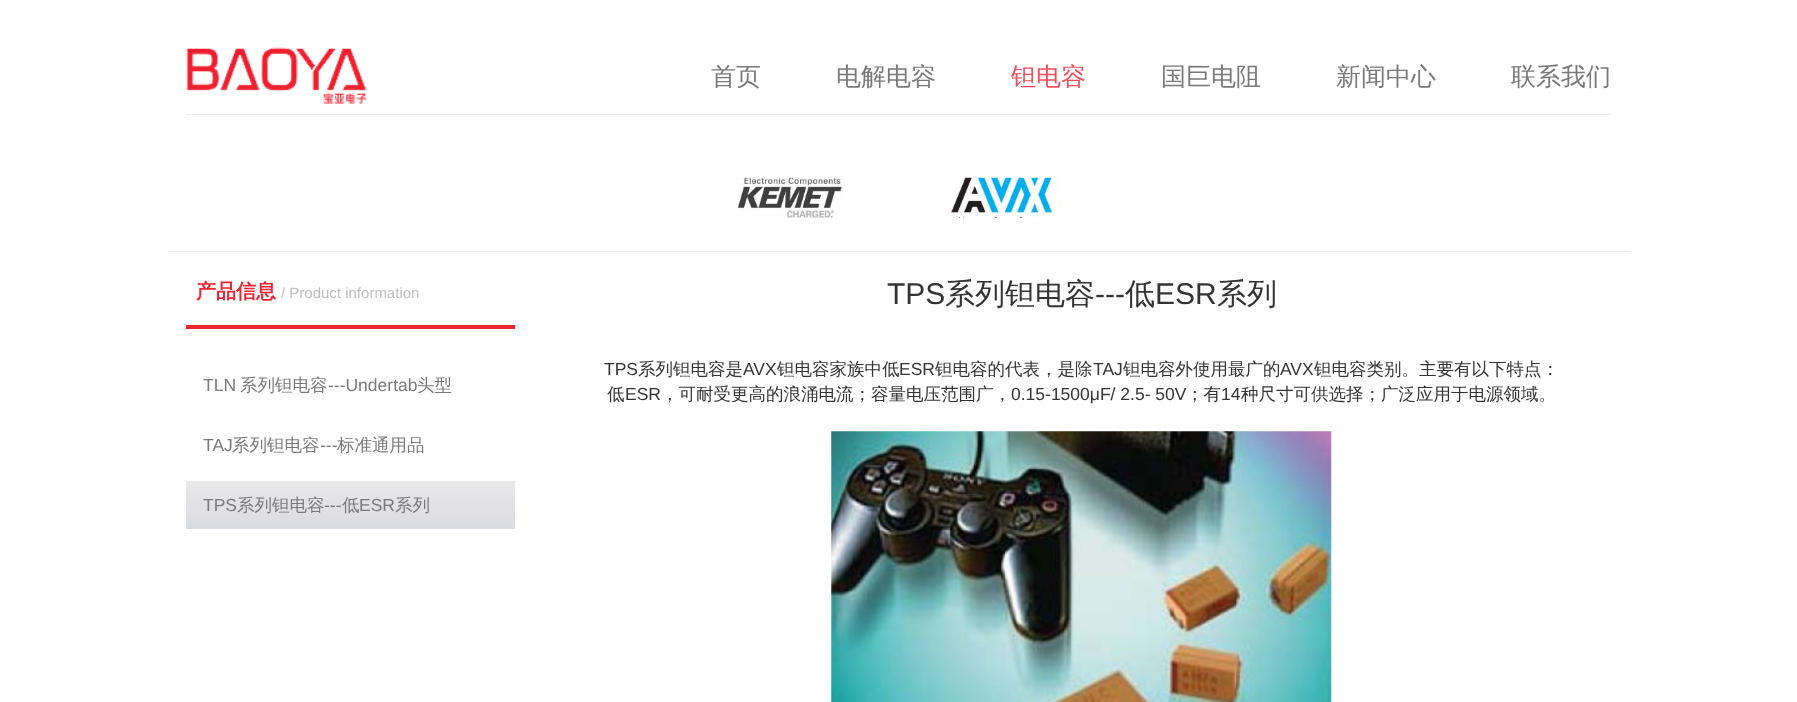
<svg xmlns="http://www.w3.org/2000/svg" width="1797" height="702">
	<defs>
		<linearGradient id="g1" gradientUnits="userSpaceOnUse" x1="186" y1="481" x2="186" y2="529"><stop offset="0" stop-color="#E9E9E9" /><stop offset="1" stop-color="#DADAE2" /></linearGradient>
	</defs>
	<rect width="100%" height="100%" fill="#FFFFFF" />
	<image x="186" y="47" width="181" height="57" href="assets/img1.png" />
	<rect x="186" y="114" width="1425" height="1" fill="#EEEEEE" />
	<g font-family="WenQuanYi Zen Hei" font-size="25" font-weight="500" fill="#79797B">
		<text x="711" y="85">首页</text>
		<text x="836" y="85">电解电容</text>
	</g>
	<text x="1011" y="85" font-family="WenQuanYi Zen Hei" font-size="25" font-weight="500" fill="#F24E59">钽电容</text>
	<g font-family="WenQuanYi Zen Hei" font-size="25" font-weight="500" fill="#79797B">
		<text x="1161" y="85">国巨电阻</text>
		<text x="1336" y="85">新闻中心</text>
		<text x="1511" y="85">联系我们</text>
	</g>
	<rect x="168" y="251" width="1462" height="1" fill="#EDEDED" />
	<image x="735" y="177" width="108" height="41" href="assets/img2.png" />
	<image x="947" y="177" width="114" height="41" href="assets/img3.png" />
	<rect x="186" y="325" width="329" height="4" fill="#ED2331" />
	<text x="196" y="298" font-family="WenQuanYi Zen Hei" font-size="20" font-weight="700" fill="#ED2331">产品信息</text>
	<text x="281" y="298" font-family="Liberation Sans" font-size="15" fill="#BEBEBE">/ Product information</text>
	<text x="203" y="391" font-family="Liberation Sans" font-size="17.5" fill="#79797B">TLN</text>
	<text x="240" y="391" font-family="WenQuanYi Zen Hei" font-size="17.5" font-weight="500" fill="#79797B">系列钽电容</text>
	<text x="328" y="391" font-family="Liberation Sans" font-size="17.5" fill="#79797B">---Undertab</text>
	<text x="417" y="391" font-family="WenQuanYi Zen Hei" font-size="17.5" font-weight="500" fill="#79797B">头型</text>
	<text x="203" y="451" font-family="Liberation Sans" font-size="17.5" fill="#79797B">TAJ</text>
	<text x="232" y="451" font-family="WenQuanYi Zen Hei" font-size="17.5" font-weight="500" fill="#79797B">系列钽电容</text>
	<text x="320" y="451" font-family="Liberation Sans" font-size="17.5" fill="#79797B">---</text>
	<text x="337" y="451" font-family="WenQuanYi Zen Hei" font-size="17.5" font-weight="500" fill="#79797B">标准通用品</text>
	<rect x="186" y="481" width="329" height="48" fill="url(#g1)" />
	<text x="203" y="511" font-family="Liberation Sans" font-size="17.5" fill="#79797B">TPS</text>
	<text x="237" y="511" font-family="WenQuanYi Zen Hei" font-size="17.5" font-weight="500" fill="#79797B">系列钽电容</text>
	<text x="324" y="511" font-family="Liberation Sans" font-size="17.5" fill="#79797B">---</text>
	<text x="342" y="511" font-family="WenQuanYi Zen Hei" font-size="17.5" font-weight="500" fill="#79797B">低</text>
	<text x="359" y="511" font-family="Liberation Sans" font-size="17.5" fill="#79797B">ESR</text>
	<text x="395" y="511" font-family="WenQuanYi Zen Hei" font-size="17.5" font-weight="500" fill="#79797B">系列</text>
	<text x="887" y="304" font-family="Liberation Sans" font-size="30" fill="#333333">TPS</text>
	<text x="945" y="304" font-family="WenQuanYi Zen Hei" font-size="30" font-weight="500" fill="#333333">系列钽电容</text>
	<text x="1095" y="304" font-family="Liberation Sans" font-size="30" fill="#333333">---</text>
	<text x="1125" y="304" font-family="WenQuanYi Zen Hei" font-size="30" font-weight="500" fill="#333333">低</text>
	<text x="1155" y="304" font-family="Liberation Sans" font-size="30" fill="#333333">ESR</text>
	<text x="1217" y="304" font-family="WenQuanYi Zen Hei" font-size="30" font-weight="500" fill="#333333">系列</text>
	<text x="604" y="375" font-family="Liberation Sans" font-size="17.5" fill="#333333">TPS</text>
	<text x="638" y="375" font-family="WenQuanYi Zen Hei" font-size="17.5" font-weight="500" fill="#333333">系列钽电容是</text>
	<text x="743" y="375" font-family="Liberation Sans" font-size="17.5" fill="#333333">AVX</text>
	<text x="777" y="375" font-family="WenQuanYi Zen Hei" font-size="17.5" font-weight="500" fill="#333333">钽电容家族中低</text>
	<text x="899" y="375" font-family="Liberation Sans" font-size="17.5" fill="#333333">ESR</text>
	<text x="935" y="375" font-family="WenQuanYi Zen Hei" font-size="17.5" font-weight="500" fill="#333333">钽电容的代表，是除</text>
	<text x="1093" y="375" font-family="Liberation Sans" font-size="17.5" fill="#333333">TAJ</text>
	<text x="1123" y="375" font-family="WenQuanYi Zen Hei" font-size="17.5" font-weight="500" fill="#333333">钽电容外使用最广的</text>
	<text x="1280" y="375" font-family="Liberation Sans" font-size="17.5" fill="#333333">AVX</text>
	<g font-family="WenQuanYi Zen Hei" font-size="17.5" font-weight="500" fill="#333333">
		<text x="1314" y="375">钽电容类别。主要有以下特点：</text>
		<text x="607" y="400">低</text>
	</g>
	<text x="625" y="400" font-family="Liberation Sans" font-size="17.5" fill="#333333">ESR</text>
	<text x="661" y="400" font-family="WenQuanYi Zen Hei" font-size="17.5" font-weight="500" fill="#333333">，可耐受更高的浪涌电流；容量电压范围广，</text>
	<text x="1011" y="400" font-family="Liberation Sans" font-size="17.5" fill="#333333">0.15-1500μF/ 2.5- 50V</text>
	<text x="1186" y="400" font-family="WenQuanYi Zen Hei" font-size="17.5" font-weight="500" fill="#333333">；有</text>
	<text x="1221" y="400" font-family="Liberation Sans" font-size="17.5" fill="#333333">14</text>
	<text x="1241" y="400" font-family="WenQuanYi Zen Hei" font-size="17.5" font-weight="500" fill="#333333">种尺寸可供选择；广泛应用于电源领域。</text>
	<image x="831" y="431" width="501" height="271" href="assets/img4.png" />
</svg>
